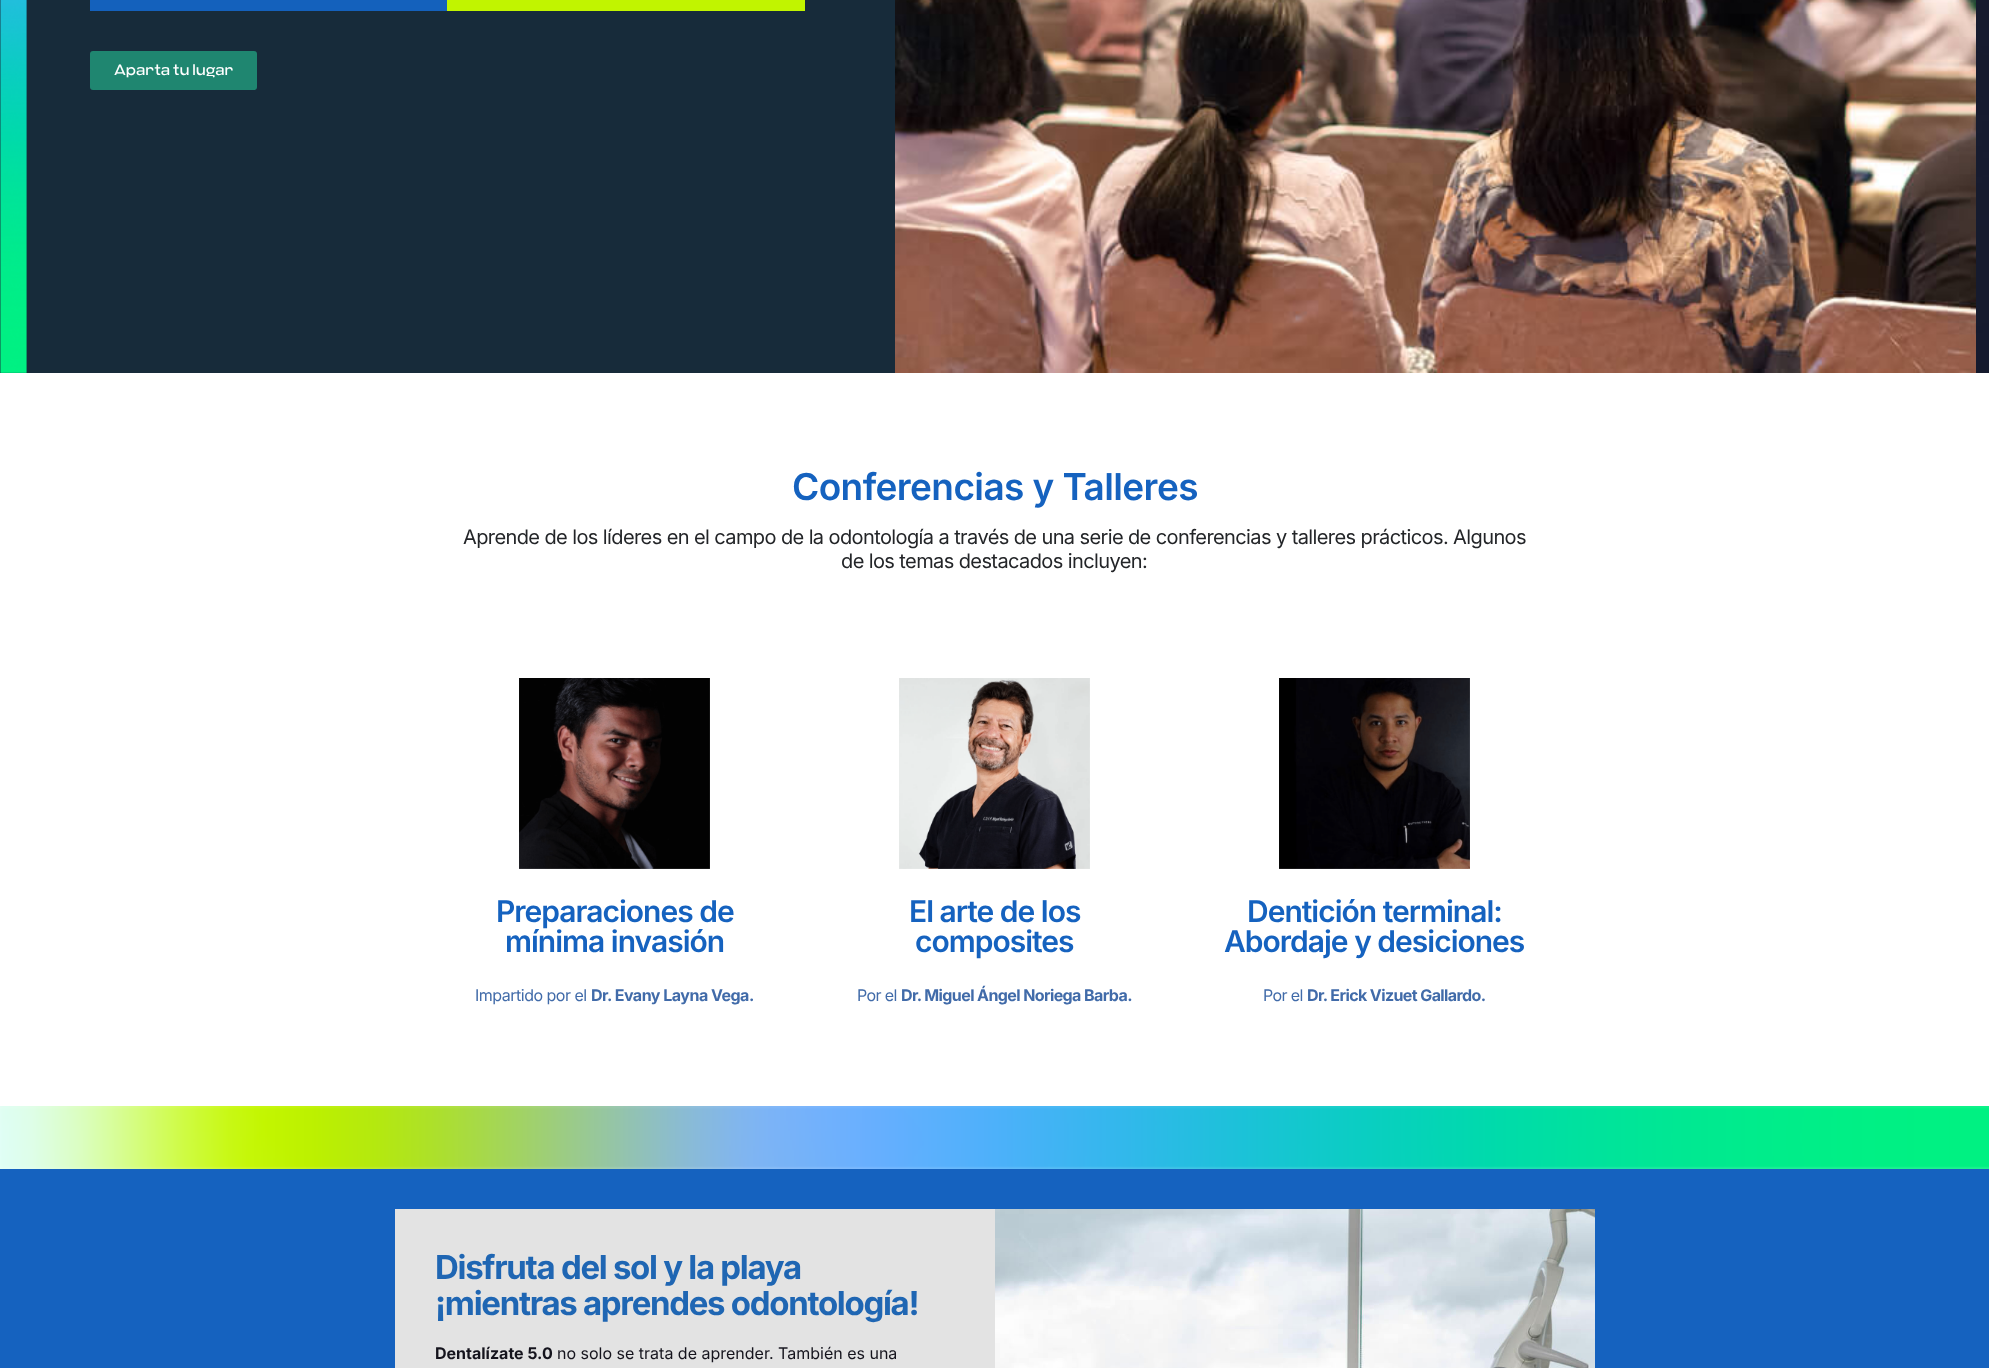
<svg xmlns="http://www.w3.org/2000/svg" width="1989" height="1368">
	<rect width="100%" height="100%" fill="#FFFFFF" />
	<image x="1976" y="0" width="13" height="373" href="assets/img1.png" />
	<rect x="0" y="0" width="895" height="373" fill="#172B3A" />
	<image x="0" y="0" width="27" height="373" href="assets/img2.png" />
	<image x="895" y="0" width="1081" height="373" href="assets/img3.png" />
	<rect x="90" y="0" width="357" height="11" fill="#1461BC" />
	<rect x="447" y="0" width="358" height="11" fill="#C1F400" />
	<rect x="90" y="51" width="167" height="39" rx="3" fill="#1F8670" />
	<text x="114" y="75" font-family="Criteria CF" font-size="15" fill="#FFFFFF">Aparta tu lugar</text>
	<text x="792" y="500" font-family="Inter" font-size="37" font-weight="600" letter-spacing="-0.6" fill="#1562BF">Conferencias y Talleres</text>
	<g font-family="Inter" font-size="20" letter-spacing="-0.6" fill="#232528">
		<text x="463" y="544">Aprende de los líderes en el campo de la odontología a través de una serie de conferencias y talleres prácticos. Algunos</text>
		<text x="841" y="568">de los temas destacados incluyen:</text>
	</g>
	<image x="519" y="678" width="191" height="191" href="assets/img4.png" />
	<g font-family="Inter" font-size="30" font-weight="600" letter-spacing="-1" fill="#1562BF">
		<text x="496" y="922">Preparaciones de</text>
		<text x="505" y="952">mínima invasión</text>
	</g>
	<text x="475" y="1001" font-family="Inter" font-size="16" letter-spacing="-0.5" fill="#416BA9">Impartido por el</text>
	<text x="591" y="1001" font-family="Inter" font-size="16" font-weight="700" letter-spacing="-0.5" fill="#416BA9">Dr. Evany Layna Vega.</text>
	<image x="899" y="678" width="191" height="191" href="assets/img5.png" />
	<g font-family="Inter" font-size="30" font-weight="600" letter-spacing="-1" fill="#1562BF">
		<text x="909" y="922">El arte de los</text>
		<text x="915" y="952">composites</text>
	</g>
	<text x="857" y="1001" font-family="Inter" font-size="16" letter-spacing="-0.6" fill="#416BA9">Por el</text>
	<text x="901" y="1001" font-family="Inter" font-size="16" font-weight="700" letter-spacing="-0.6" fill="#416BA9">Dr. Miguel Ángel Noriega Barba.</text>
	<image x="1279" y="678" width="191" height="191" href="assets/img6.png" />
	<g font-family="Inter" font-size="30" font-weight="600" letter-spacing="-1" fill="#1562BF">
		<text x="1247" y="922">Dentición terminal:</text>
		<text x="1224" y="952">Abordaje y desiciones</text>
	</g>
	<text x="1263" y="1001" font-family="Inter" font-size="16" letter-spacing="-0.6" fill="#416BA9">Por el</text>
	<text x="1307" y="1001" font-family="Inter" font-size="16" font-weight="700" letter-spacing="-0.6" fill="#416BA9">Dr. Erick Vizuet Gallardo.</text>
	<image x="0" y="1106" width="1989" height="63" href="assets/img7.png" />
	<rect x="0" y="1169" width="1989" height="199" fill="#1562BF" />
	<rect x="395" y="1209" width="600" height="159" fill="#E3E3E3" />
	<g font-family="Inter" font-size="33" font-weight="700" letter-spacing="-1.3" fill="#1F66B3">
		<text x="435" y="1279">Disfruta del sol y la playa</text>
		<text x="435" y="1315">¡mientras aprendes odontología!</text>
	</g>
	<text x="435" y="1359" font-family="Inter" font-size="16" font-weight="700" fill="#15141D">Dentalízate 5.0</text>
	<text x="557" y="1359" font-family="Inter" font-size="16" fill="#15141D">no solo se trata de aprender. También es una</text>
	<image x="995" y="1209" width="600" height="159" href="assets/img8.png" />
</svg>
